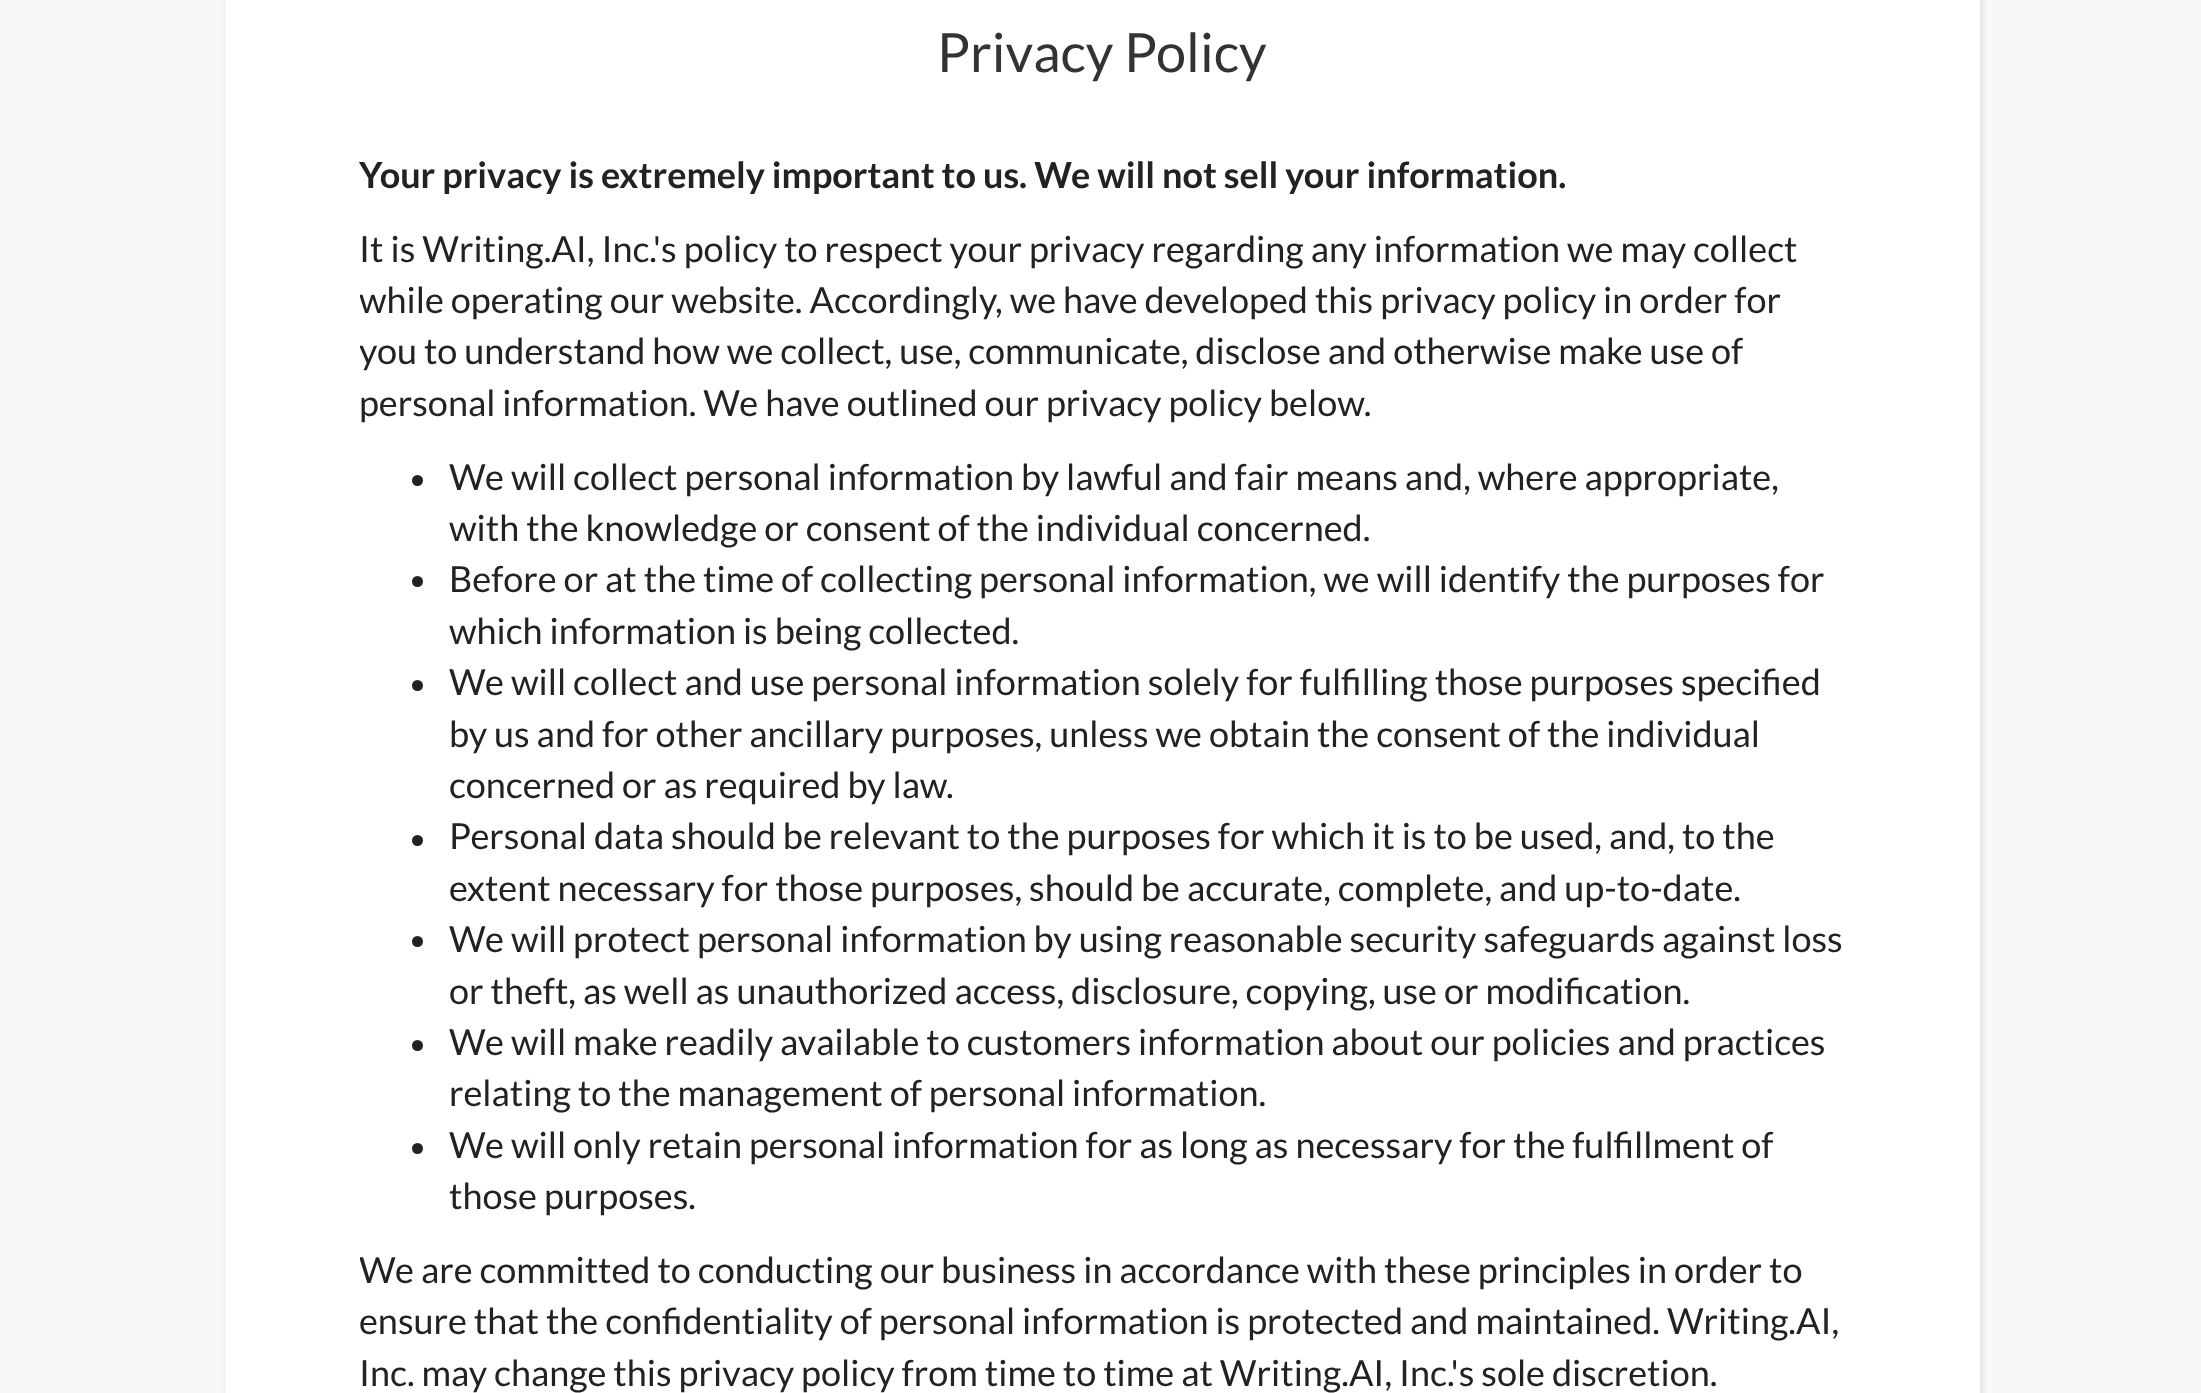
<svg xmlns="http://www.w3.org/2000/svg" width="2201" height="1393">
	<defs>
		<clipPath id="clip1"><rect x="360" y="149" width="1485" height="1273" /></clipPath>
	</defs>
	<rect width="100%" height="100%" fill="#F7F8F9" />
	<rect x="227" y="-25" width="1755" height="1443" rx="14" fill="#DDDDDD" filter="blur(3.5px)" />
	<rect x="225" y="0" width="1755" height="1393" fill="#FFFFFF" />
	<text x="937" y="72" font-family="Lato" font-size="54" fill="#333333">Privacy Policy</text>
	<text x="359" y="188" font-family="Lato" font-size="36" font-weight="700" fill="#222222">Your privacy is extremely important to us. We will not sell your information.</text>
	<text x="359" y="262" font-family="Lato" font-size="36" fill="#222222">It is Writing.AI, Inc.'s policy to respect your privacy regarding any information we may collect</text>
	<g clip-path="url(#clip1)">
		<g font-family="Lato" font-size="36" fill="#222222">
			<text x="359" y="313">while operating our website. Accordingly, we have developed this privacy policy in order for</text>
			<text x="359" y="364">you to understand how we collect, use, communicate, disclose and otherwise make use of</text>
		</g>
	</g>
	<text x="359" y="416" font-family="Lato" font-size="36" fill="#222222">personal information. We have outlined our privacy policy below.</text>
	<circle cx="417.5" cy="480.5" r="5.5" fill="#222222" />
	<g font-family="Lato" font-size="36" fill="#222222">
		<text x="449" y="490">We will collect personal information by lawful and fair means and, where appropriate,</text>
		<text x="449" y="541">with the knowledge or consent of the individual concerned.</text>
	</g>
	<circle cx="417.5" cy="581.5" r="5.5" fill="#222222" />
	<g font-family="Lato" font-size="36" fill="#222222">
		<text x="449" y="592">Before or at the time of collecting personal information, we will identify the purposes for</text>
		<text x="449" y="644">which information is being collected.</text>
	</g>
	<circle cx="417.5" cy="685.5" r="5.5" fill="#222222" />
	<g font-family="Lato" font-size="36" fill="#222222">
		<text x="449" y="695">We will collect and use personal information solely for fulfilling those purposes specified</text>
		<text x="449" y="747">by us and for other ancillary purposes, unless we obtain the consent of the individual</text>
		<text x="449" y="798">concerned or as required by law.</text>
	</g>
	<circle cx="417.5" cy="840.5" r="5.5" fill="#222222" />
	<g font-family="Lato" font-size="36" fill="#222222">
		<text x="449" y="849">Personal data should be relevant to the purposes for which it is to be used, and, to the</text>
		<text x="449" y="901">extent necessary for those purposes, should be accurate, complete, and up-to-date.</text>
	</g>
	<circle cx="417.5" cy="941.5" r="5.5" fill="#222222" />
	<g font-family="Lato" font-size="36" fill="#222222">
		<text x="449" y="952">We will protect personal information by using reasonable security safeguards against loss</text>
		<text x="449" y="1004">or theft, as well as unauthorized access, disclosure, copying, use or modification.</text>
	</g>
	<circle cx="417.5" cy="1045.5" r="5.5" fill="#222222" />
	<g font-family="Lato" font-size="36" fill="#222222">
		<text x="449" y="1055">We will make readily available to customers information about our policies and practices</text>
		<text x="449" y="1106">relating to the management of personal information.</text>
	</g>
	<circle cx="417.5" cy="1148.5" r="5.5" fill="#222222" />
	<g font-family="Lato" font-size="36" fill="#222222">
		<text x="449" y="1158">We will only retain personal information for as long as necessary for the fulfillment of</text>
		<text x="449" y="1209">those purposes.</text>
	</g>
	<g clip-path="url(#clip1)">
		<text x="359" y="1283" font-family="Lato" font-size="36" fill="#222222">We are committed to conducting our business in accordance with these principles in order to</text>
	</g>
	<g font-family="Lato" font-size="36" fill="#222222">
		<text x="359" y="1334">ensure that the confidentiality of personal information is protected and maintained. Writing.AI,</text>
		<text x="359" y="1386">Inc. may change this privacy policy from time to time at Writing.AI, Inc.'s sole discretion.</text>
	</g>
</svg>
